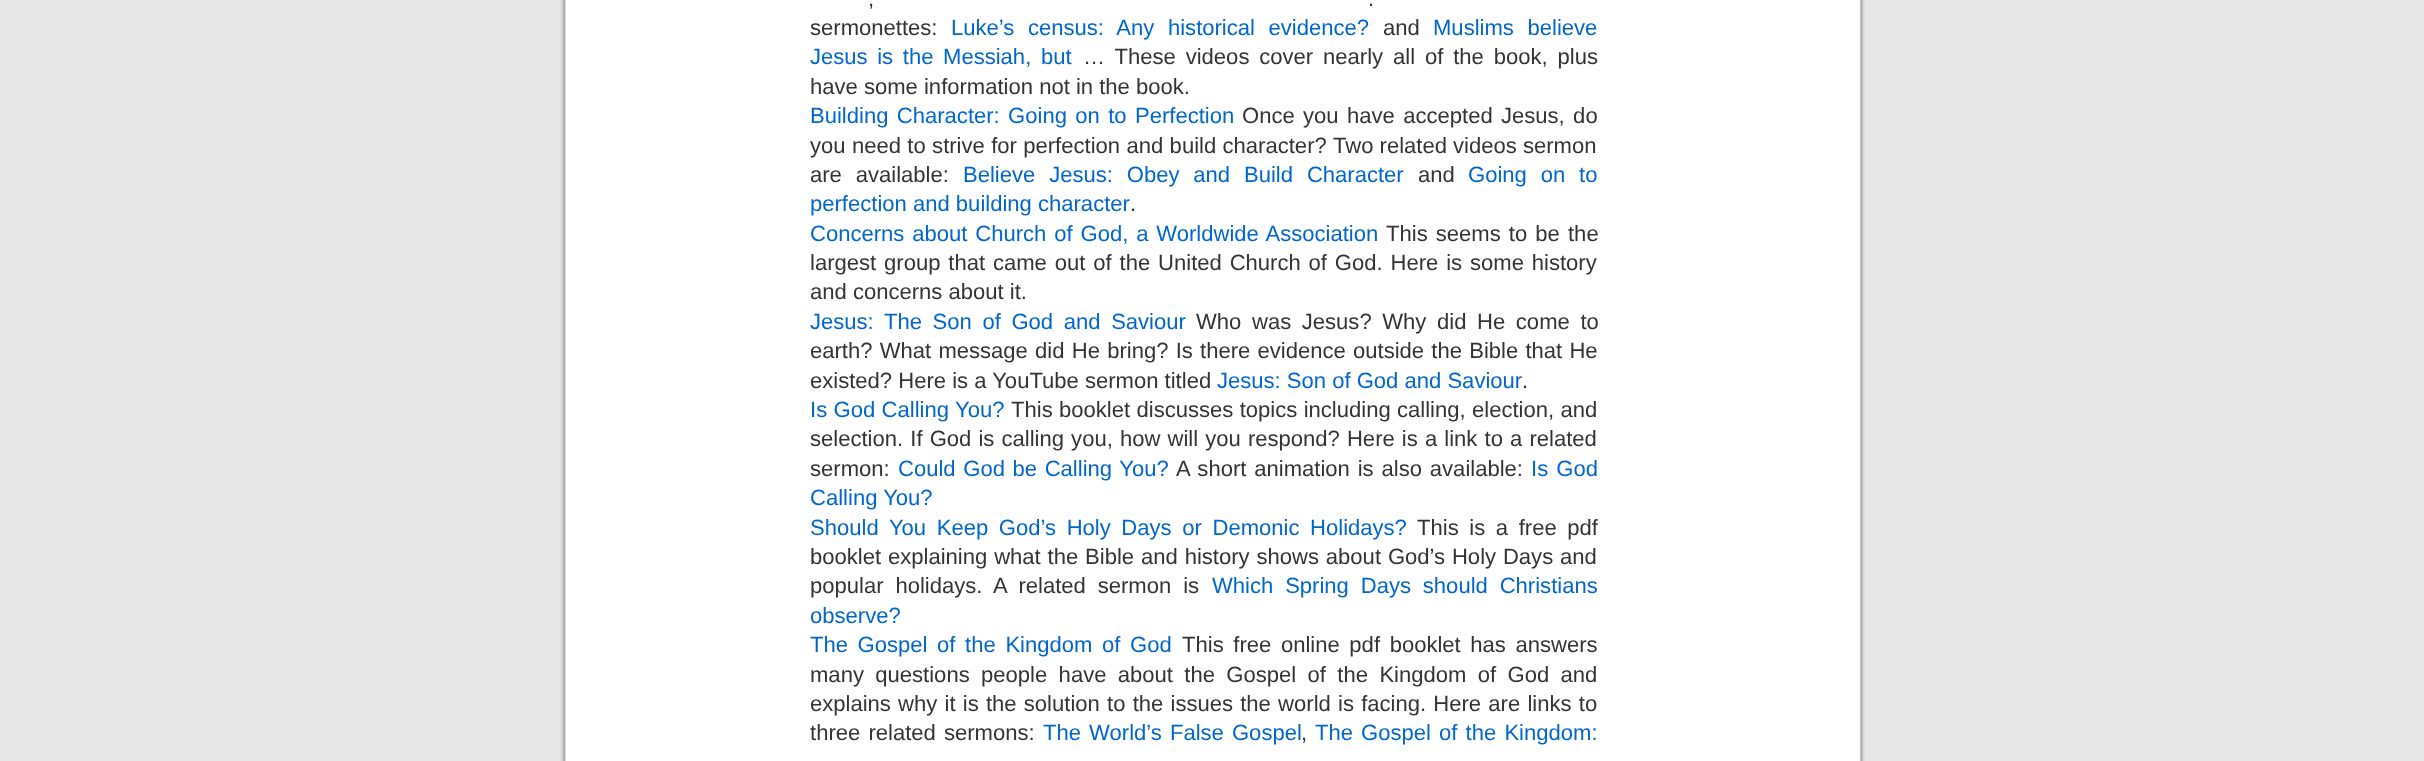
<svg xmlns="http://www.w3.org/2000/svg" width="2424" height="761">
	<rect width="100%" height="100%" fill="#E7E7E7" />
	<image x="560" y="0" width="1305" height="761" href="assets/img1.png" />
	<g font-family="Liberation Sans" font-size="22.05" fill="#333333">
		<text x="868" y="6" word-spacing="4.5">,</text>
		<text x="1368" y="6" word-spacing="4.5">.</text>
		<text x="810" y="35">sermonettes:</text>
	</g>
	<text x="951" y="35" word-spacing="7.5" font-family="Liberation Sans" font-size="22.05" fill="#0066CC">Luke’s census: Any historical evidence?</text>
	<text x="1383" y="35" font-family="Liberation Sans" font-size="22.05" fill="#333333">and</text>
	<g font-family="Liberation Sans" font-size="22.05" fill="#0066CC">
		<text x="1433" y="35" word-spacing="7.5">Muslims believe</text>
		<text x="810" y="64" word-spacing="3.5">Jesus is the Messiah, but</text>
	</g>
	<g font-family="Liberation Sans" font-size="22.05" fill="#333333">
		<text x="1083" y="64" word-spacing="3.75">… These videos cover nearly all of the book, plus</text>
		<text x="810" y="94">have some information not in the book.</text>
	</g>
	<text x="810" y="123" word-spacing="2.25" font-family="Liberation Sans" font-size="22.05" fill="#0066CC">Building Character: Going on to Perfection</text>
	<g font-family="Liberation Sans" font-size="22.05" fill="#333333">
		<text x="1242" y="123" word-spacing="2.25">Once you have accepted Jesus, do</text>
		<text x="810" y="153" word-spacing="0.25">you need to strive for perfection and build character?</text>
		<text x="1333" y="153">Two related videos sermon</text>
		<text x="810" y="182" word-spacing="7.75">are available:</text>
	</g>
	<text x="963" y="182" word-spacing="7.75" font-family="Liberation Sans" font-size="22.05" fill="#0066CC">Believe Jesus: Obey and Build Character</text>
	<text x="1418" y="182" font-family="Liberation Sans" font-size="22.05" fill="#333333">and</text>
	<g font-family="Liberation Sans" font-size="22.05" fill="#0066CC">
		<text x="1468" y="182" word-spacing="7.75">Going on to</text>
		<text x="810" y="211">perfection and building character</text>
	</g>
	<text x="1130" y="211" font-family="Liberation Sans" font-size="22.05" fill="#333333">.</text>
	<text x="810" y="241" word-spacing="1.75" font-family="Liberation Sans" font-size="22.05" fill="#0066CC">Concerns about Church of God, a Worldwide Association</text>
	<g font-family="Liberation Sans" font-size="22.05" fill="#333333">
		<text x="1386" y="241" word-spacing="2">This seems to be the</text>
		<text x="810" y="270" word-spacing="1.75">largest group that came out of the United Church of God. Here is some history</text>
		<text x="810" y="299">and concerns about it.</text>
	</g>
	<text x="810" y="329" word-spacing="4.5" font-family="Liberation Sans" font-size="22.05" fill="#0066CC">Jesus: The Son of God and Saviour</text>
	<g font-family="Liberation Sans" font-size="22.05" fill="#333333">
		<text x="1196" y="329" word-spacing="4.5">Who was Jesus? Why did He come to</text>
		<text x="810" y="358" word-spacing="1.1">earth? What message did He bring? Is there evidence outside the Bible that He</text>
		<text x="810" y="388">existed? Here is a YouTube sermon titled</text>
	</g>
	<text x="1217" y="388" font-family="Liberation Sans" font-size="22.05" fill="#0066CC">Jesus: Son of God and Saviour</text>
	<text x="1522" y="388" font-family="Liberation Sans" font-size="22.05" fill="#333333">.</text>
	<text x="810" y="417" word-spacing="0.25" font-family="Liberation Sans" font-size="22.05" fill="#0066CC">Is God Calling You?</text>
	<g font-family="Liberation Sans" font-size="22.05" fill="#333333">
		<text x="1011" y="417" word-spacing="0.25">This booklet discusses topics including calling, election, and</text>
		<text x="810" y="446" word-spacing="1">selection. If God is calling you, how will you respond? Here is a link to a related</text>
		<text x="810" y="476">sermon:</text>
	</g>
	<text x="898" y="476" word-spacing="1.5" font-family="Liberation Sans" font-size="22.05" fill="#0066CC">Could God be Calling You?</text>
	<text x="1176" y="476" word-spacing="1.75" font-family="Liberation Sans" font-size="22.05" fill="#333333">A short animation is also available:</text>
	<g font-family="Liberation Sans" font-size="22.05" fill="#0066CC">
		<text x="1531" y="476" word-spacing="2">Is God</text>
		<text x="810" y="505">Calling You?</text>
		<text x="810" y="535" word-spacing="4.5">Should You Keep God’s Holy Days or Demonic Holidays?</text>
	</g>
	<g font-family="Liberation Sans" font-size="22.05" fill="#333333">
		<text x="1417" y="535" word-spacing="4.5">This is a free pdf</text>
		<text x="810" y="564" word-spacing="0.75">booklet explaining what the Bible and history shows about God’s Holy Days and</text>
		<text x="810" y="593" word-spacing="5.75">popular holidays. A related sermon is</text>
	</g>
	<g font-family="Liberation Sans" font-size="22.05" fill="#0066CC">
		<text x="1212" y="593" word-spacing="5.75">Which Spring Days should Christians</text>
		<text x="810" y="623">observe?</text>
		<text x="810" y="652" word-spacing="3.5">The Gospel of the Kingdom of God</text>
	</g>
	<g font-family="Liberation Sans" font-size="22.05" fill="#333333">
		<text x="1182" y="652" word-spacing="3.5">This free online pdf booklet has answers</text>
		<text x="810" y="682" word-spacing="5.25">many questions people have about the Gospel of the Kingdom of God and</text>
		<text x="810" y="711" word-spacing="1.1">explains why it is the solution to the issues the world is facing. Here are links to</text>
		<text x="810" y="740" word-spacing="2">three related sermons:</text>
	</g>
	<text x="1043" y="740" word-spacing="2" font-family="Liberation Sans" font-size="22.05" fill="#0066CC">The World’s False Gospel</text>
	<text x="1301" y="740" font-family="Liberation Sans" font-size="22.05" fill="#333333">,</text>
	<text x="1315" y="740" word-spacing="2" font-family="Liberation Sans" font-size="22.05" fill="#0066CC">The Gospel of the Kingdom:</text>
</svg>
